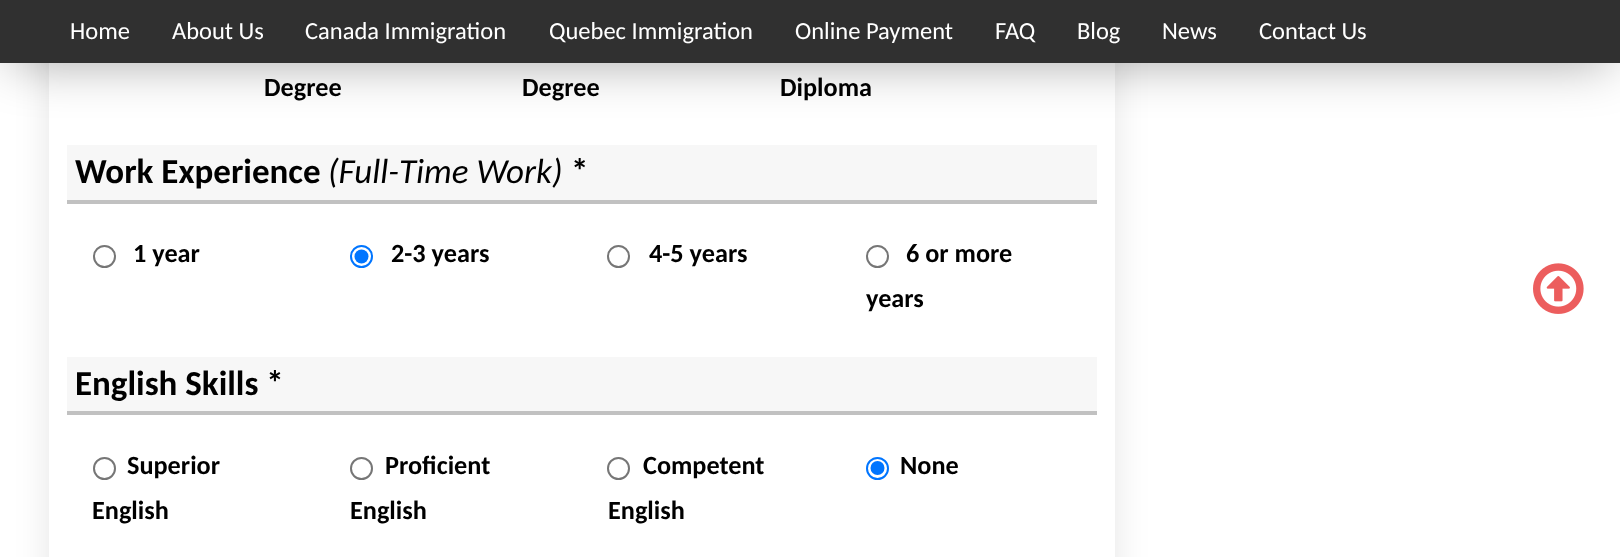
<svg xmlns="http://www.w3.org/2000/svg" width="1620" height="557">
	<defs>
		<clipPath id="clip1"><path d="M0 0H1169V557H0ZM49-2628H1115V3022H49Z" clip-rule="evenodd" /></clipPath>
	</defs>
	<rect width="100%" height="100%" fill="#FFFFFF" />
	<rect x="11" y="18" width="1599" height="42" fill="#000000" fill-opacity="0.4" filter="blur(26px)" />
	<g clip-path="url(#clip1)">
		<rect x="49" y="-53" width="1066" height="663" fill="#000000" fill-opacity="0.1" filter="blur(17.5px)" />
	</g>
	<rect x="0" y="0" width="1620" height="63" fill="#303030" />
	<g font-family="Carlito" font-size="24.5" fill="#FFFFFF">
		<text x="70" y="39">Home</text>
		<text x="172" y="39">About Us</text>
		<text x="305" y="39">Canada Immigration</text>
		<text x="549" y="39">Quebec Immigration</text>
		<text x="795" y="39">Online Payment</text>
		<text x="995" y="39">FAQ</text>
		<text x="1077" y="39">Blog</text>
		<text x="1162" y="39">News</text>
		<text x="1259" y="39">Contact Us</text>
	</g>
	<g font-family="Carlito" font-size="26.25" font-weight="700" fill="#000000">
		<text x="264" y="96">Degree</text>
		<text x="522" y="96">Degree</text>
		<text x="780" y="96">Diploma</text>
	</g>
	<rect x="67" y="145" width="1030" height="55" fill="#F7F7F7" />
	<rect x="67" y="200" width="1030" height="4" fill="#C1C1C1" />
	<text x="75" y="183" font-family="Carlito" font-size="35" font-weight="700" fill="#000000">Work Experience</text>
	<text x="328" y="183" font-family="Carlito" font-size="35" font-style="italic" fill="#000000">(Full-Time Work)</text>
	<text x="571" y="183" font-family="Carlito" font-size="35" font-weight="700" fill="#000000">*</text>
	<circle cx="104.5" cy="256.5" r="10.5" fill="none" stroke="#767676" stroke-width="2" />
	<text x="133" y="262" font-family="Carlito" font-size="26.25" font-weight="700" fill="#000000">1 year</text>
	<circle cx="361.5" cy="256.5" r="10.5" fill="none" stroke="#0075FF" stroke-width="2" />
	<circle cx="361.5" cy="256.5" r="7" fill="#0075FF" />
	<text x="391" y="262" font-family="Carlito" font-size="26.25" font-weight="700" fill="#000000">2-3 years</text>
	<circle cx="618.5" cy="256.5" r="10.5" fill="none" stroke="#767676" stroke-width="2" />
	<text x="649" y="262" font-family="Carlito" font-size="26.25" font-weight="700" fill="#000000">4-5 years</text>
	<circle cx="877.5" cy="256.5" r="10.5" fill="none" stroke="#767676" stroke-width="2" />
	<g font-family="Carlito" font-size="26.25" font-weight="700" fill="#000000">
		<text x="906" y="262">6 or more</text>
		<text x="866" y="307">years</text>
	</g>
	<rect x="67" y="357" width="1030" height="54" fill="#F7F7F7" />
	<rect x="67" y="411" width="1030" height="4" fill="#C1C1C1" />
	<text x="75" y="395" font-family="Carlito" font-size="35" font-weight="700" fill="#000000">English Skills *</text>
	<circle cx="104.5" cy="468.5" r="10.5" fill="none" stroke="#767676" stroke-width="2" />
	<g font-family="Carlito" font-size="26.25" font-weight="700" fill="#000000">
		<text x="127" y="474">Superior</text>
		<text x="92" y="519">English</text>
	</g>
	<circle cx="361.5" cy="468.5" r="10.5" fill="none" stroke="#767676" stroke-width="2" />
	<g font-family="Carlito" font-size="26.25" font-weight="700" fill="#000000">
		<text x="385" y="474">Proficient</text>
		<text x="350" y="519">English</text>
	</g>
	<circle cx="618.5" cy="468.5" r="10.5" fill="none" stroke="#767676" stroke-width="2" />
	<g font-family="Carlito" font-size="26.25" font-weight="700" fill="#000000">
		<text x="643" y="474">Competent</text>
		<text x="608" y="519">English</text>
	</g>
	<circle cx="877.5" cy="468.5" r="10.5" fill="none" stroke="#0075FF" stroke-width="2" />
	<circle cx="877.5" cy="468" r="7" fill="#0075FF" />
	<text x="900" y="474" font-family="Carlito" font-size="26.25" font-weight="700" fill="#000000">None</text>
	<image x="1533" y="263" width="51" height="51" href="assets/img1.png" />
</svg>
